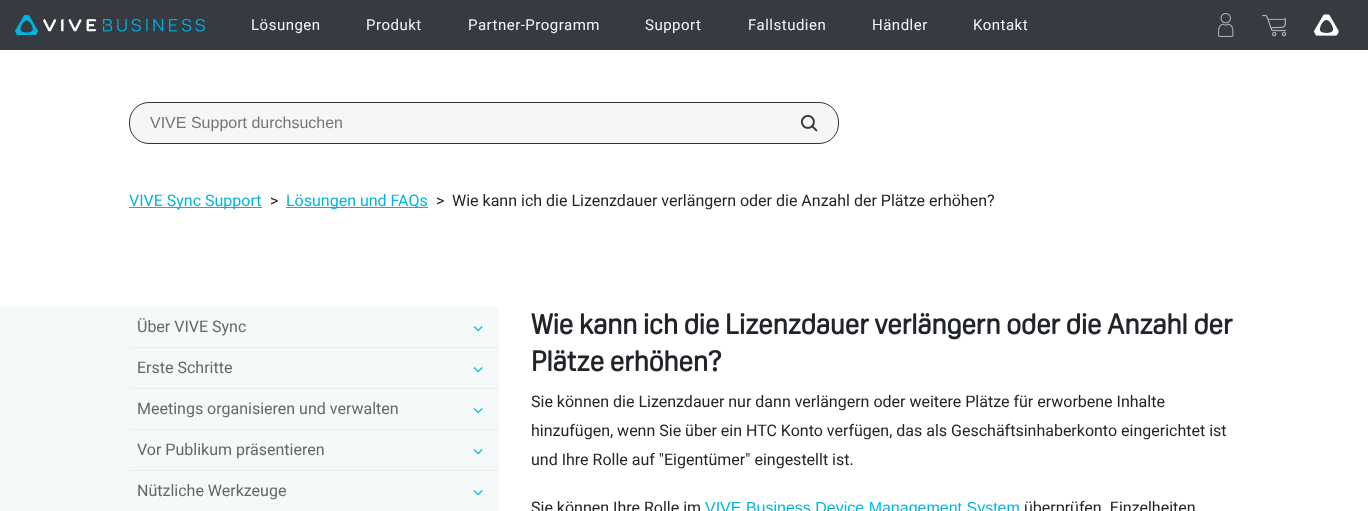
<svg xmlns="http://www.w3.org/2000/svg" width="1368" height="511">
	<rect width="100%" height="100%" fill="#FFFFFF" />
	<rect x="0" y="0" width="1368" height="50" fill="#353B41" />
	<image x="15" y="15" width="190" height="20" href="assets/img1.png" />
	<g font-family="Roboto" font-size="15" letter-spacing="0.5" fill="#F2F4F8">
		<text x="251" y="30">Lösungen</text>
		<text x="366" y="30">Produkt</text>
		<text x="468" y="30">Partner-Programm</text>
		<text x="645" y="30">Support</text>
		<text x="748" y="30">Fallstudien</text>
		<text x="872" y="30">Händler</text>
		<text x="973" y="30">Kontakt</text>
	</g>
	<image x="1218" y="13" width="16" height="24" href="assets/img2.png" />
	<image x="1262" y="15" width="25" height="22" href="assets/img3.png" />
	<image x="1314" y="14" width="25" height="22" href="assets/img4.png" />
	<rect x="129.5" y="102.5" width="709" height="41" rx="19.5" fill="#F4F6F8" stroke="#333333" />
	<text x="150" y="128" font-family="Liberation Sans" font-size="16" fill="#757575">VIVE Support durchsuchen</text>
	<image x="800" y="114" width="18" height="18" href="assets/img5.png" />
	<rect x="129" y="207" width="133" height="1" fill="#00B5E2" />
	<text x="129" y="206" font-family="Roboto" font-size="16" fill="#00B5E2">VIVE Sync Support</text>
	<text x="270" y="206" font-family="Roboto" font-size="16" fill="#212529">&gt;</text>
	<rect x="286" y="207" width="142" height="1" fill="#00B5E2" />
	<text x="286" y="206" font-family="Roboto" font-size="16" fill="#00B5E2">Lösungen und FAQs</text>
	<g font-family="Roboto" font-size="16" fill="#212529">
		<text x="436" y="206">&gt;</text>
		<text x="452" y="206">Wie kann ich die Lizenzdauer verlängern oder die Anzahl der Plätze erhöhen?</text>
	</g>
	<rect x="0" y="307" width="499" height="204" fill="#F5F9FA" />
	<rect x="129" y="347" width="370" height="1" fill="#EEEEEE" />
	<text x="137" y="332" font-family="Roboto" font-size="16" fill="#666666">Über VIVE Sync</text>
	<image x="473" y="326" width="10" height="6" href="assets/img6.png" />
	<rect x="129" y="388" width="370" height="1" fill="#EEEEEE" />
	<text x="137" y="373" font-family="Roboto" font-size="16" fill="#666666">Erste Schritte</text>
	<image x="473" y="367" width="10" height="6" href="assets/img6.png" />
	<rect x="129" y="429" width="370" height="1" fill="#EEEEEE" />
	<text x="137" y="414" font-family="Roboto" font-size="16" fill="#666666">Meetings organisieren und verwalten</text>
	<image x="473" y="408" width="10" height="6" href="assets/img6.png" />
	<rect x="129" y="470" width="370" height="1" fill="#EEEEEE" />
	<text x="137" y="455" font-family="Roboto" font-size="16" fill="#666666">Vor Publikum präsentieren</text>
	<image x="473" y="449" width="10" height="6" href="assets/img6.png" />
	<text x="137" y="496" font-family="Roboto" font-size="16" fill="#666666">Nützliche Werkzeuge</text>
	<image x="473" y="490" width="10" height="6" href="assets/img6.png" />
	<g font-family="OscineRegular" font-size="28" font-weight="700" fill="#212529">
		<text x="531" y="334">Wie kann ich die Lizenzdauer verlängern oder die Anzahl der</text>
		<text x="531" y="371">Plätze erhöhen?</text>
	</g>
	<g font-family="Roboto" font-size="16" fill="#212529">
		<text x="531" y="407">Sie können die Lizenzdauer nur dann verlängern oder weitere Plätze für erworbene Inhalte</text>
		<text x="531" y="436">hinzufügen, wenn Sie über ein HTC Konto verfügen, das als Geschäftsinhaberkonto eingerichtet ist</text>
		<text x="531" y="465">und Ihre Rolle auf "‍Eigentümer"‍ eingestellt ist.</text>
		<text x="531" y="513">Sie können Ihre Rolle im</text>
	</g>
	<text x="705" y="513" font-family="Liberation Sans" font-size="16" fill="#00B5E2">VIVE Business Device Management System</text>
	<text x="1024" y="513" font-family="Roboto" font-size="16" fill="#212529">überprüfen. Einzelheiten</text>
</svg>
